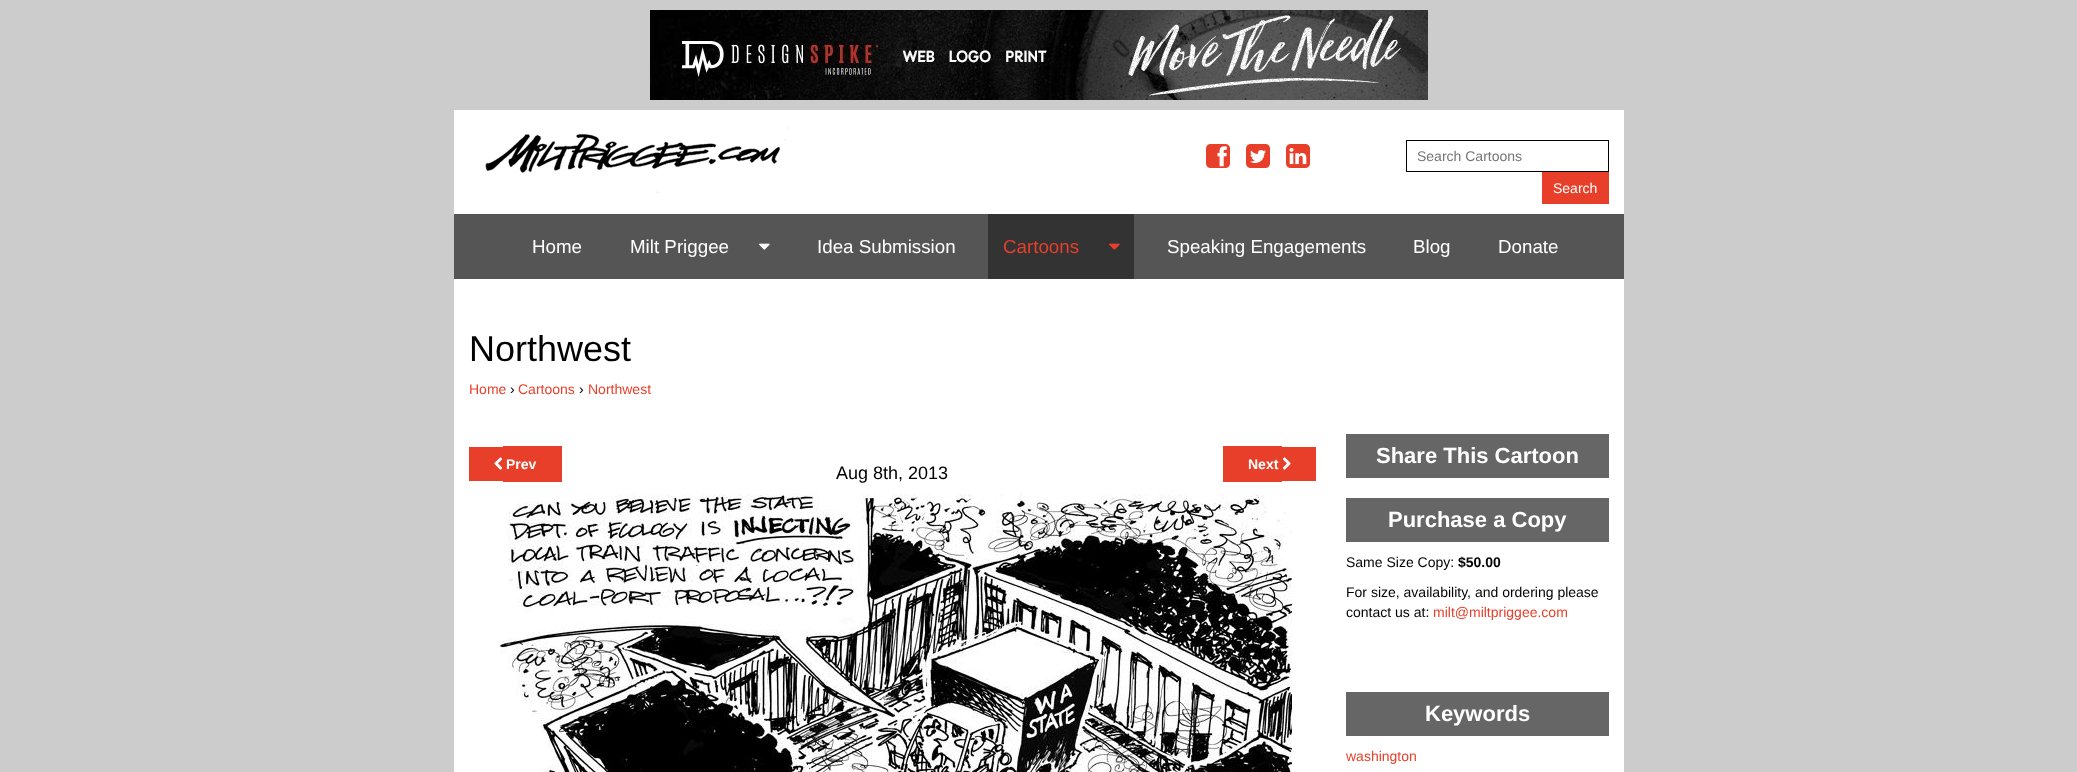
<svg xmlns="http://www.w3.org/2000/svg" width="2077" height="772">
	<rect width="100%" height="100%" fill="#CCCCCC" />
	<image x="650" y="10" width="778" height="90" href="assets/img1.png" />
	<rect x="454" y="110" width="1170" height="662" fill="#FFFFFF" />
	<image x="485" y="127" width="304" height="66" href="assets/img2.png" />
	<image x="1206" y="144" width="24" height="24" href="assets/img3.png" />
	<image x="1246" y="144" width="24" height="24" href="assets/img4.png" />
	<image x="1286" y="144" width="24" height="24" href="assets/img5.png" />
	<rect x="1406.5" y="140.5" width="202" height="31" fill="none" stroke="#000000" />
	<text x="1417" y="161" font-family="Liberation Sans" font-size="14" fill="#757575">Search Cartoons</text>
	<rect x="1542" y="172" width="67" height="32" fill="#E73F2A" />
	<text x="1553" y="193" font-family="Liberation Sans" font-size="14" fill="#FFFFFF">Search</text>
	<rect x="454" y="214" width="1170" height="65" fill="#555555" />
	<g font-family="Liberation Sans" font-size="18.75" fill="#FFFFFF">
		<text x="532" y="253">Home</text>
		<text x="630" y="253">Milt Priggee</text>
	</g>
	<image x="759" y="243" width="11" height="7" href="assets/img6.png" />
	<text x="817" y="253" font-family="Liberation Sans" font-size="18.75" fill="#FFFFFF">Idea Submission</text>
	<rect x="988" y="214" width="146" height="65" fill="#333333" />
	<image x="1109" y="243" width="11" height="7" href="assets/img7.png" />
	<text x="1003" y="253" font-family="Liberation Sans" font-size="18.75" fill="#E73F2A">Cartoons</text>
	<g font-family="Liberation Sans" font-size="18.75" fill="#FFFFFF">
		<text x="1167" y="253">Speaking Engagements</text>
		<text x="1413" y="253">Blog</text>
		<text x="1498" y="253">Donate</text>
	</g>
	<text x="469" y="361" font-family="Liberation Sans" font-size="36" fill="#000000">Northwest</text>
	<text x="469" y="394" font-family="Liberation Sans" font-size="14" fill="#E73F2A">Home</text>
	<text x="510" y="394" font-family="Liberation Sans" font-size="14" fill="#000000">›</text>
	<text x="518" y="394" font-family="Liberation Sans" font-size="14" fill="#E73F2A">Cartoons</text>
	<text x="579" y="394" font-family="Liberation Sans" font-size="14" fill="#000000">›</text>
	<text x="588" y="394" font-family="Liberation Sans" font-size="14" fill="#E73F2A">Northwest</text>
	<rect x="469" y="447" width="34" height="34" fill="#E73F2A" />
	<rect x="503" y="446" width="59" height="36" fill="#E73F2A" />
	<image x="494" y="457" width="8" height="13" href="assets/img8.png" />
	<text x="506" y="469" font-family="Liberation Sans" font-size="14" font-weight="700" fill="#FFFFFF">Prev</text>
	<text x="836" y="479" font-family="Liberation Sans" font-size="18" fill="#000000">Aug 8th, 2013</text>
	<rect x="1223" y="446" width="59" height="36" fill="#E73F2A" />
	<rect x="1282" y="447" width="34" height="34" fill="#E73F2A" />
	<text x="1248" y="469" font-family="Liberation Sans" font-size="14" font-weight="700" fill="#FFFFFF">Next</text>
	<image x="1283" y="457" width="8" height="13" href="assets/img9.png" />
	<image x="500" y="494" width="792" height="278" href="assets/img10.png" />
	<rect x="1346" y="434" width="263" height="44" fill="#666666" />
	<text x="1376" y="463" font-family="Liberation Sans" font-size="22" font-weight="700" fill="#FFFFFF">Share This Cartoon</text>
	<rect x="1346" y="498" width="263" height="44" fill="#666666" />
	<text x="1388" y="527" font-family="Liberation Sans" font-size="22" font-weight="700" fill="#FFFFFF">Purchase a Copy</text>
	<text x="1346" y="567" font-family="Liberation Sans" font-size="14" fill="#000000">Same Size Copy:</text>
	<text x="1458" y="567" font-family="Liberation Sans" font-size="14" font-weight="700" fill="#000000">$50.00</text>
	<g font-family="Liberation Sans" font-size="14" fill="#000000">
		<text x="1346" y="597">For size, availability, and ordering please</text>
		<text x="1346" y="617">contact us at:</text>
	</g>
	<text x="1433" y="617" font-family="Liberation Sans" font-size="14" fill="#E73F2A">milt@miltpriggee.com</text>
	<rect x="1346" y="692" width="263" height="44" fill="#666666" />
	<text x="1425" y="721" font-family="Liberation Sans" font-size="22" font-weight="700" fill="#FFFFFF">Keywords</text>
	<text x="1346" y="761" font-family="Liberation Sans" font-size="14" fill="#E73F2A">washington</text>
</svg>
